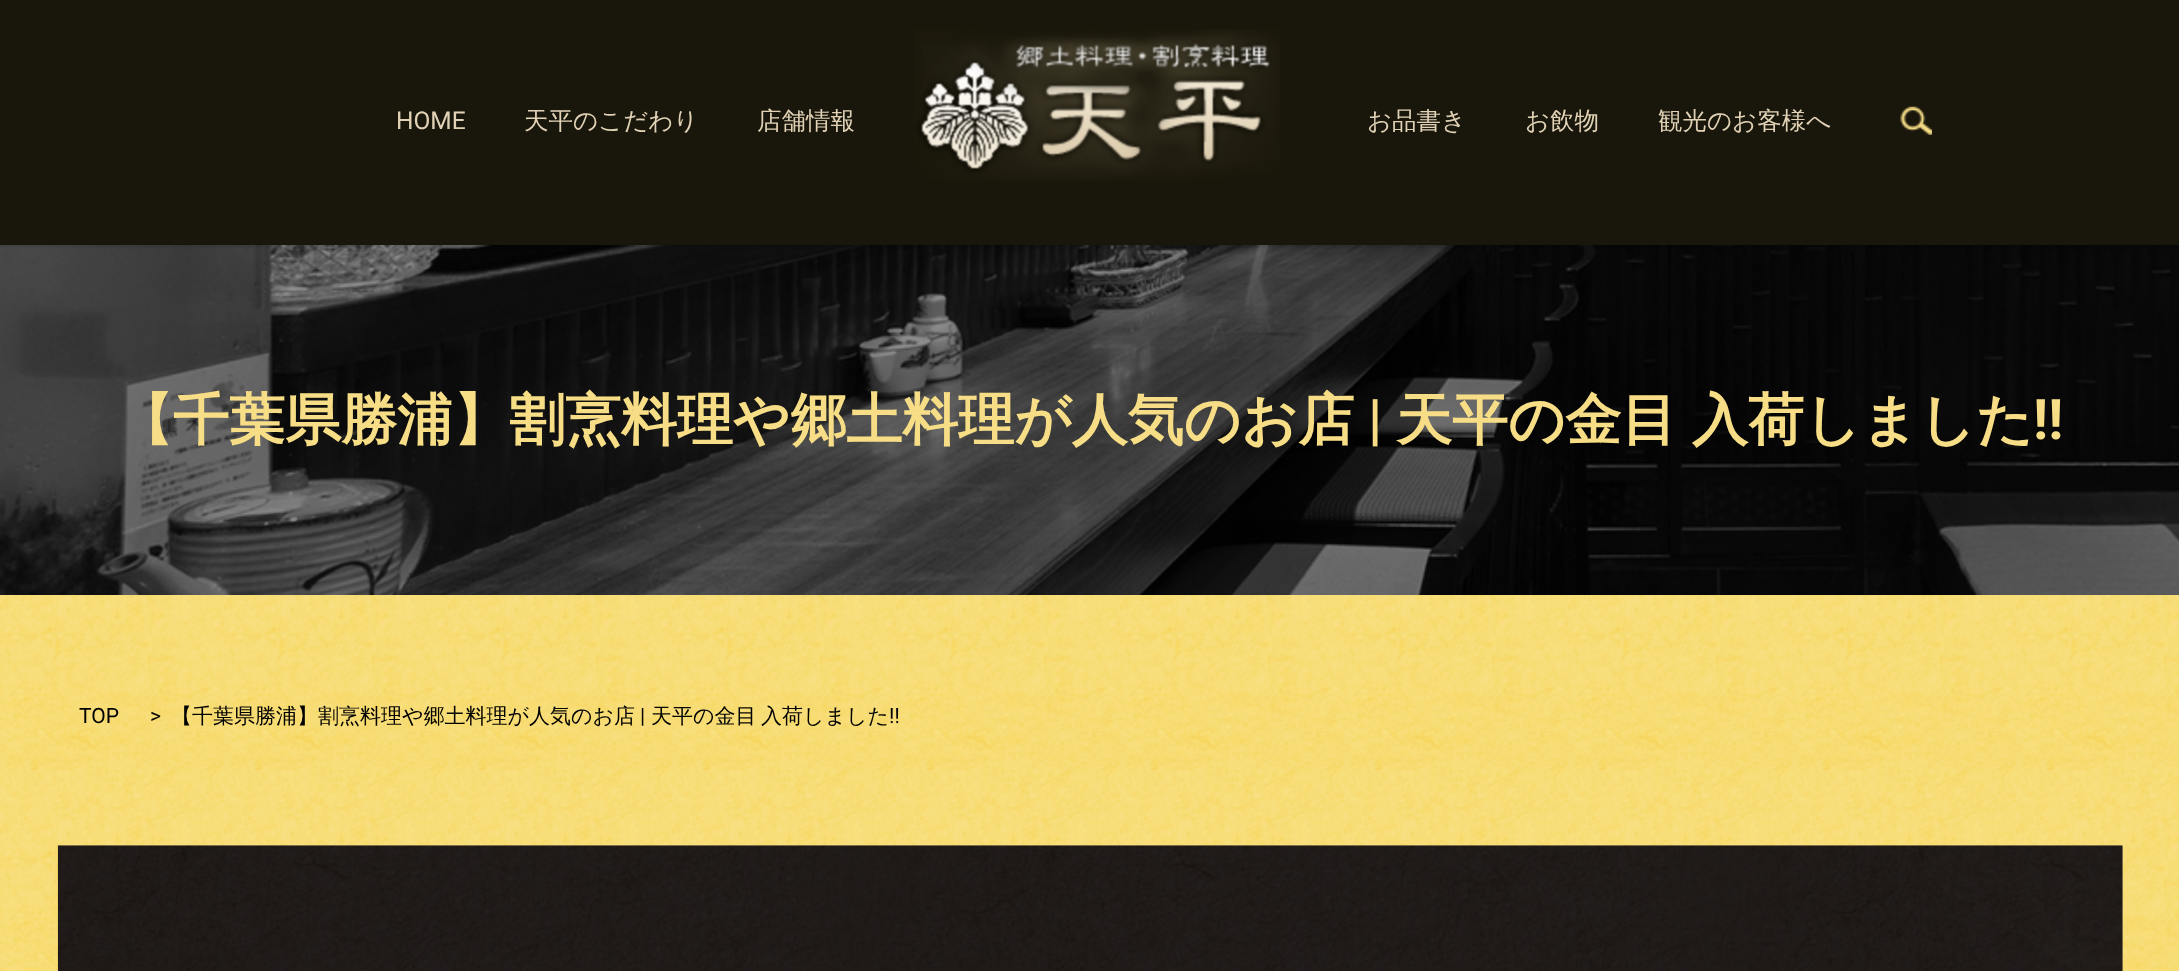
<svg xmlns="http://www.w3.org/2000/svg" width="2179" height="971">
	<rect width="100%" height="100%" fill="#FFFFFF" />
	<image x="0" y="245" width="2179" height="350" href="assets/img4.png" />
	<rect x="0" y="2" width="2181" height="245" fill="#000000" fill-opacity="0.1" filter="blur(1px)" />
	<rect x="0" y="0" width="2179" height="245" fill="#19160B" />
	<image x="914" y="29" width="366" height="152" href="assets/img1.png" />
	<text x="396" y="129" font-family="Roboto" font-size="24.5" fill="#E1D2B6">HOME</text>
	<g font-family="WenQuanYi Zen Hei" font-size="24.5" font-weight="500" fill="#E1D2B6">
		<text x="524" y="129">天平のこだわり</text>
		<text x="757" y="129">店舗情報</text>
		<text x="1367" y="129">お品書き</text>
		<text x="1525" y="129">お飲物</text>
		<text x="1658" y="129">観光のお客様へ</text>
	</g>
	<image x="1900" y="106" width="32" height="29" href="assets/img2.png" />
	<image x="0" y="595" width="2179" height="376" href="assets/img3.png" />
	<text x="117" y="439" font-family="WenQuanYi Zen Hei" font-size="56" font-weight="700" fill="#F7DE86">【千葉県勝浦】割烹料理や郷土料理が人気のお店</text>
	<text x="1368" y="439" font-family="Roboto" font-size="56" font-weight="700" fill="#F7DE86">|</text>
	<g font-family="WenQuanYi Zen Hei" font-size="56" font-weight="700" fill="#F7DE86">
		<text x="1396" y="439">天平の金目</text>
		<text x="1692" y="439">入荷しました</text>
	</g>
	<text x="2033" y="439" font-family="Roboto" font-size="56" font-weight="700" fill="#F7DE86">‼︎</text>
	<g font-family="Roboto" font-size="21" fill="#000000">
		<text x="79" y="723">TOP</text>
		<text x="150" y="723">&gt;</text>
	</g>
	<text x="171" y="723" font-family="WenQuanYi Zen Hei" font-size="21" font-weight="500" fill="#000000">【千葉県勝浦】割烹料理や郷土料理が人気のお店</text>
	<text x="640" y="723" font-family="Roboto" font-size="21" fill="#000000">|</text>
	<g font-family="WenQuanYi Zen Hei" font-size="21" font-weight="500" fill="#000000">
		<text x="651" y="723">天平の金目</text>
		<text x="761" y="723">入荷しました</text>
	</g>
	<text x="889" y="723" font-family="Roboto" font-size="21" fill="#000000">‼︎</text>
	<image x="57" y="845" width="2066" height="126" href="assets/img5.png" />
</svg>
